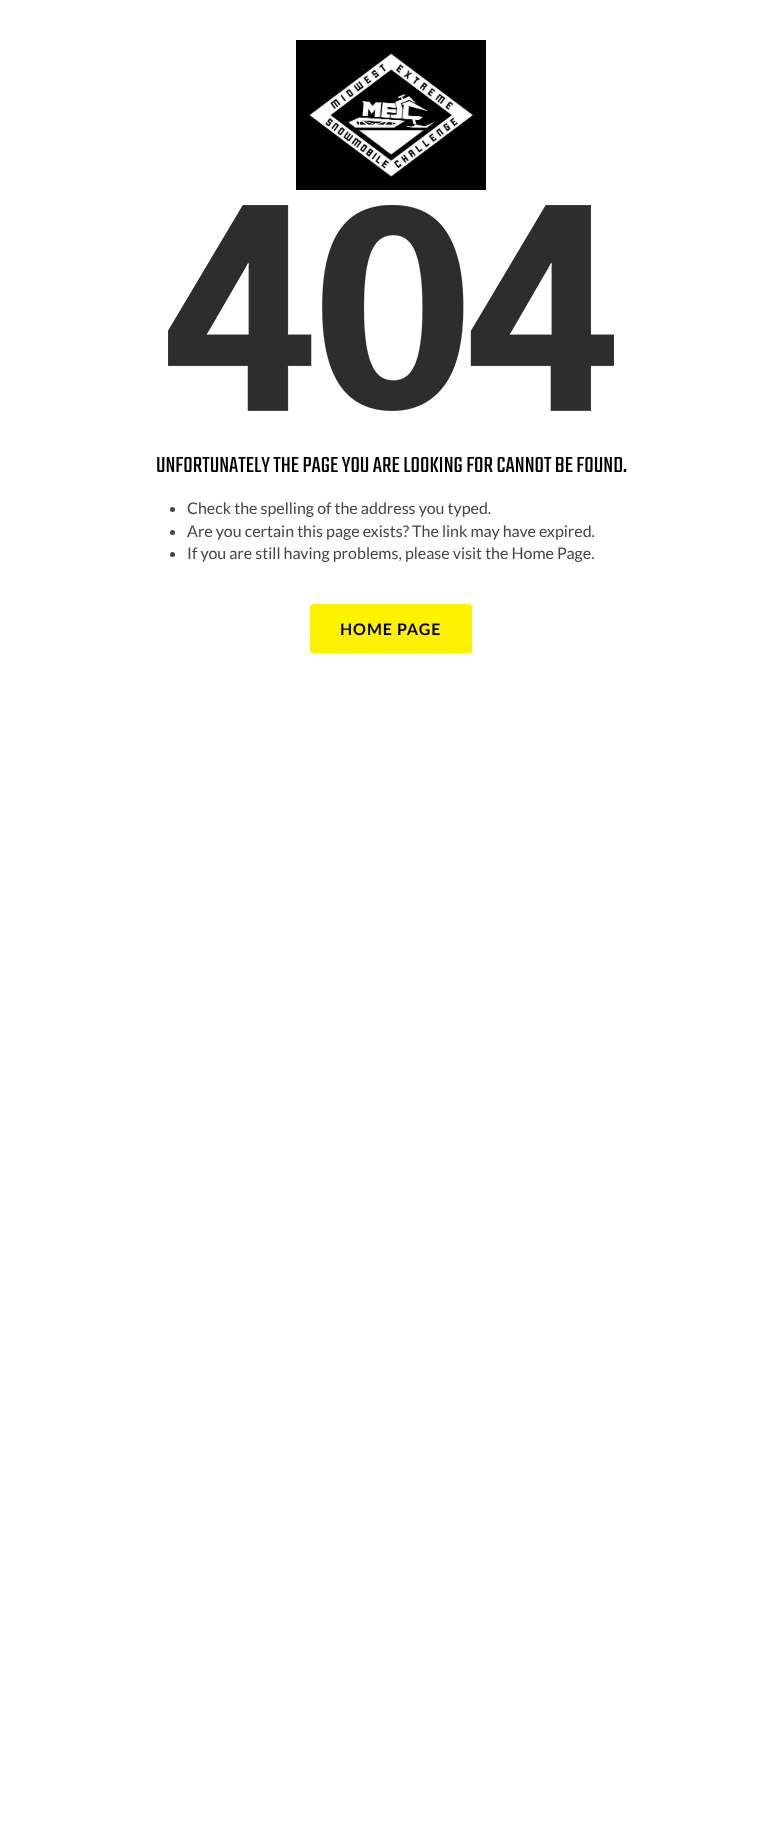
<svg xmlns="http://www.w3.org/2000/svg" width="782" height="1828">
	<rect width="100%" height="100%" fill="#FFFFFF" />
	<image x="296" y="40" width="190" height="150" href="assets/img1.png" />
	<image x="168" y="205" width="446" height="206" href="assets/img2.png" />
	<text x="156" y="472" font-family="Teko" font-size="24" fill="#000000">UNFORTUNATELY THE PAGE YOU ARE LOOKING FOR CANNOT BE FOUND.</text>
	<circle cx="172.5" cy="509.5" r="2.5" fill="#454545" />
	<text x="187" y="514" font-family="Lato" font-size="16" fill="#454545">Check the spelling of the address you typed.</text>
	<circle cx="172.5" cy="532.5" r="2.5" fill="#454545" />
	<text x="187" y="537" font-family="Lato" font-size="16" fill="#454545">Are you certain this page exists? The link may have expired.</text>
	<circle cx="172.5" cy="554.5" r="2.5" fill="#454545" />
	<text x="187" y="559" font-family="Lato" font-size="16" fill="#454545">If you are still having problems, please visit the Home Page.</text>
	<rect x="310" y="604" width="162" height="49" rx="3" fill="#FFF200" />
	<text x="340" y="635" font-family="Lato" font-size="16" font-weight="700" letter-spacing="1" fill="#000000">HOME PAGE</text>
</svg>
